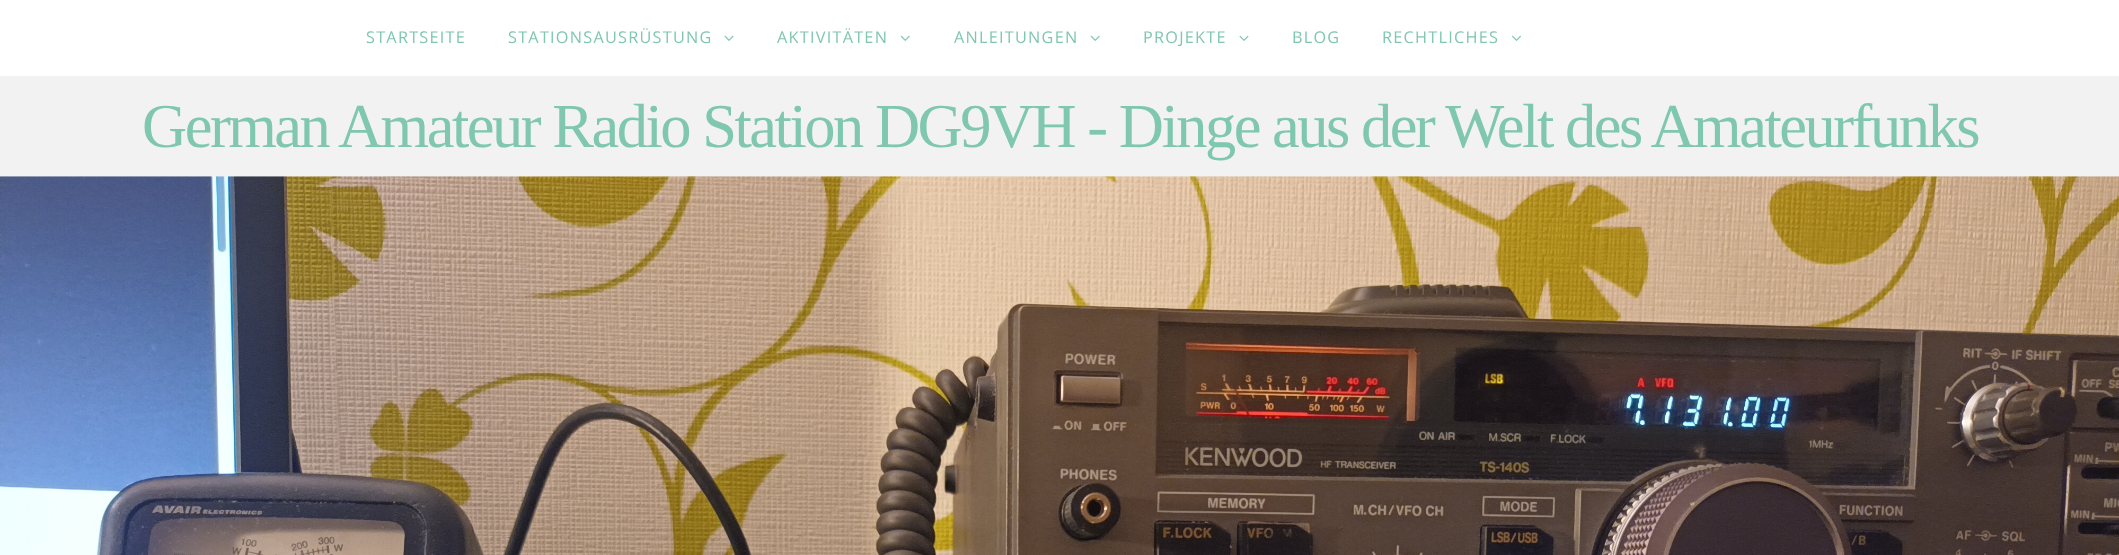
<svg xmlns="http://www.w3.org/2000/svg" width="2119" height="555">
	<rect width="100%" height="100%" fill="#F2F2F2" />
	<rect x="0" y="0" width="2119" height="76" fill="#FFFFFF" />
	<g font-family="Open Sans" font-size="16.25" letter-spacing="1.25" fill="#7FC7AF">
		<text x="366" y="43">STARTSEITE</text>
		<text x="508" y="43">STATIONSAUSRÜSTUNG</text>
	</g>
	<image x="724" y="35" width="10" height="6" href="assets/img1.png" />
	<text x="777" y="43" font-family="Open Sans" font-size="16.25" letter-spacing="1.25" fill="#7FC7AF">AKTIVITÄTEN</text>
	<image x="900" y="35" width="10" height="6" href="assets/img2.png" />
	<text x="954" y="43" font-family="Open Sans" font-size="16.25" letter-spacing="1.25" fill="#7FC7AF">ANLEITUNGEN</text>
	<image x="1090" y="35" width="10" height="6" href="assets/img2.png" />
	<text x="1143" y="43" font-family="Open Sans" font-size="16.25" letter-spacing="1.25" fill="#7FC7AF">PROJEKTE</text>
	<image x="1239" y="35" width="10" height="6" href="assets/img1.png" />
	<g font-family="Open Sans" font-size="16.25" letter-spacing="1.25" fill="#7FC7AF">
		<text x="1292" y="43">BLOG</text>
		<text x="1382" y="43">RECHTLICHES</text>
	</g>
	<image x="1512" y="35" width="9" height="6" href="assets/img3.png" />
	<text x="142" y="147" font-family="Liberation Serif" font-size="62.5" letter-spacing="-2.5" fill="#7FC7AF">German Amateur Radio Station DG9VH - Dinge aus der Welt des Amateurfunks</text>
	<image x="0" y="176" width="2119" height="379" href="assets/img4.png" />
</svg>
